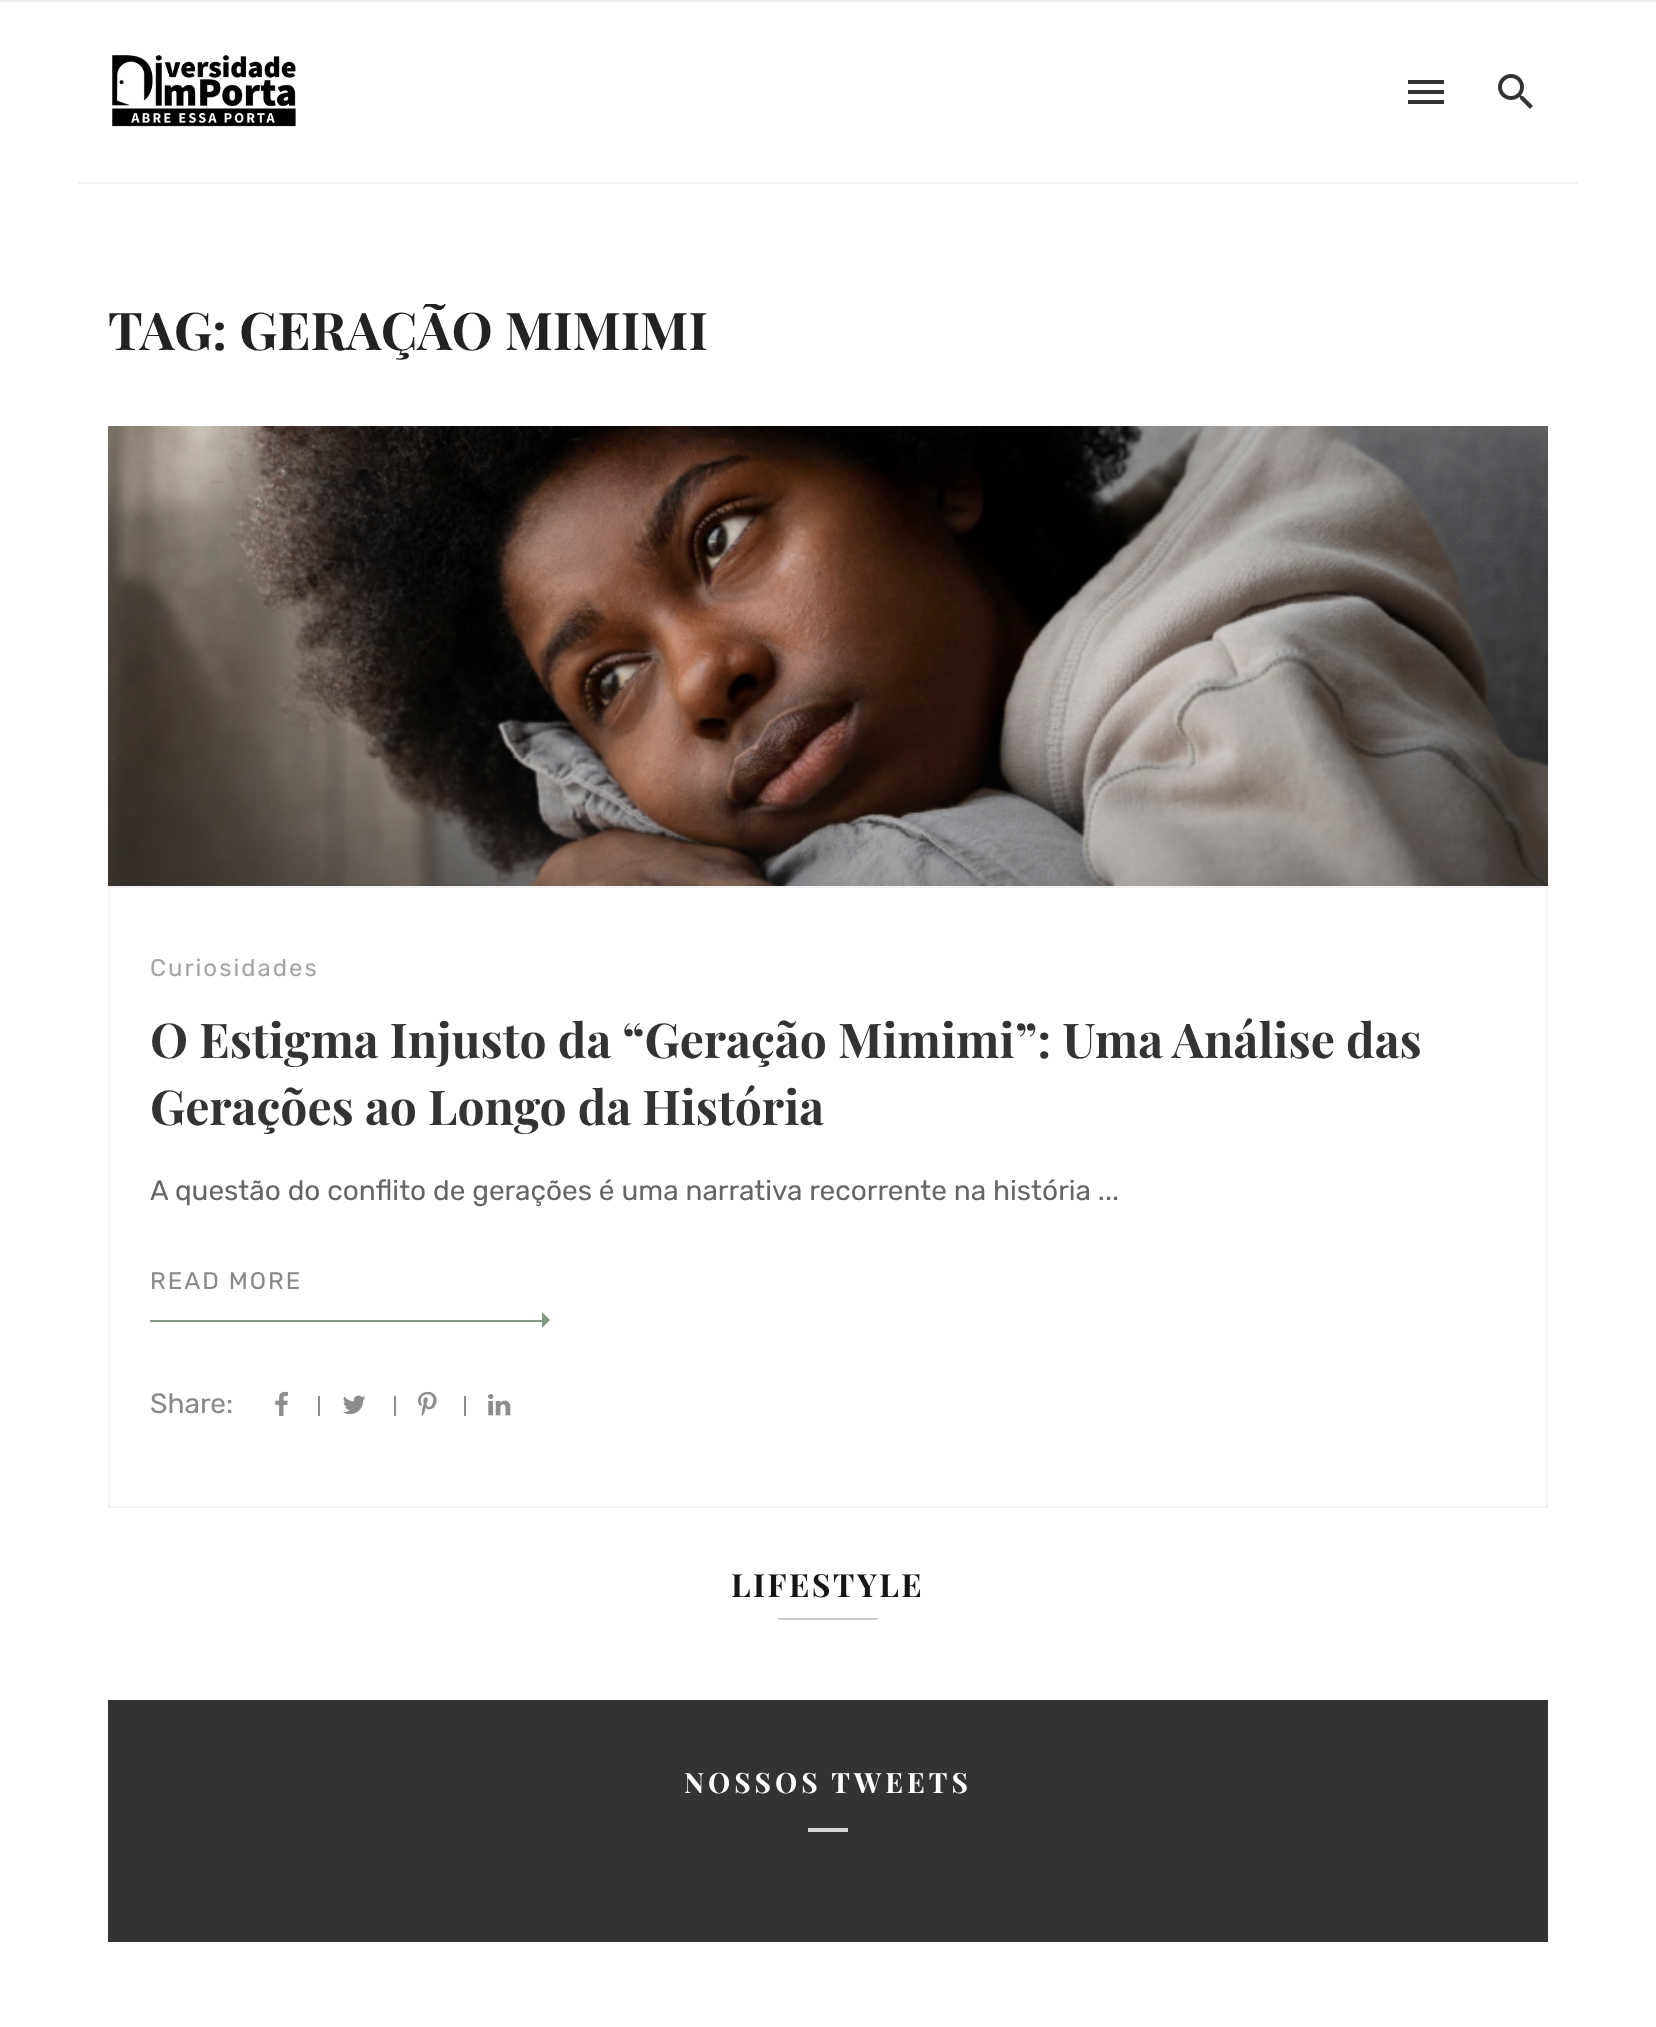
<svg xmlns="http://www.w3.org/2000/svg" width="1656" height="2027">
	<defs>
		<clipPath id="clip1"><rect x="0" y="304" width="1656" height="1638" /></clipPath>
	</defs>
	<rect width="100%" height="100%" fill="#FFFFFF" />
	<rect x="0" y="0" width="1656" height="2" fill="#EEEEEE" />
	<rect x="78" y="182" width="1500" height="2" fill="#F2F2F2" />
	<image x="112" y="55" width="184" height="72" href="assets/img1.png" />
	<path d="M1408 80H1444V84H1408ZM1408 94V90H1444V94ZM1408 104V100H1444V104Z" fill="#333333" />
	<image x="1498" y="74" width="35" height="35" href="assets/img2.png" />
	<g clip-path="url(#clip1)">
		<text x="108" y="350" font-family="Playfair Display" font-size="52" font-weight="700" fill="#222222">TAG: GERAÇÃO MIMIMI</text>
	</g>
	<image x="108" y="426" width="1440" height="460" href="assets/img3.png" />
	<rect x="109" y="887" width="1438" height="620" fill="none" stroke="#F2F2F2" stroke-width="2" />
	<text x="150" y="976" font-family="Rubik" font-size="24" letter-spacing="2" fill="#A4A4A4">Curiosidades</text>
	<g font-family="Playfair Display" font-size="48" font-weight="700" fill="#333333">
		<text x="150" y="1058">O Estigma Injusto da “Geração Mimimi”: Uma Análise das</text>
		<text x="150" y="1125">Gerações ao Longo da História</text>
	</g>
	<text x="150" y="1200" font-family="Rubik" font-size="28" fill="#666666">A questão do conflito de gerações é uma narrativa recorrente na história ...</text>
	<rect x="150" y="1320" width="392" height="2" fill="#849985" />
	<text x="150" y="1289" font-family="Rubik" font-size="24" letter-spacing="2" fill="#888888">READ MORE</text>
	<path d="M542 1328V1312L550 1320Z" fill="#849985" />
	<text x="150" y="1413" font-family="Rubik" font-size="28" fill="#888888">Share:</text>
	<image x="275" y="1391" width="13" height="25" href="assets/img4.png" />
	<rect x="318" y="1396" width="2" height="20" fill="#8D8D8D" />
	<image x="343" y="1395" width="23" height="20" href="assets/img5.png" />
	<rect x="394" y="1396" width="2" height="20" fill="#8D8D8D" />
	<image x="418" y="1391" width="19" height="25" href="assets/img6.png" />
	<rect x="464" y="1396" width="2" height="20" fill="#8D8D8D" />
	<image x="488" y="1394" width="23" height="22" href="assets/img7.png" />
	<text x="731" y="1597" font-family="Playfair Display" font-size="32" font-weight="700" letter-spacing="2.5" fill="#151715">LIFESTYLE</text>
	<rect x="778" y="1618" width="100" height="2" fill="#CCCCCC" />
	<rect x="108" y="1700" width="1440" height="242" fill="#333333" />
	<text x="684" y="1793" font-family="Playfair Display" font-size="28" font-weight="700" letter-spacing="4" fill="#FFFFFF">NOSSOS TWEETS</text>
	<rect x="808" y="1828" width="40" height="4" fill="#D6D6D6" />
</svg>
